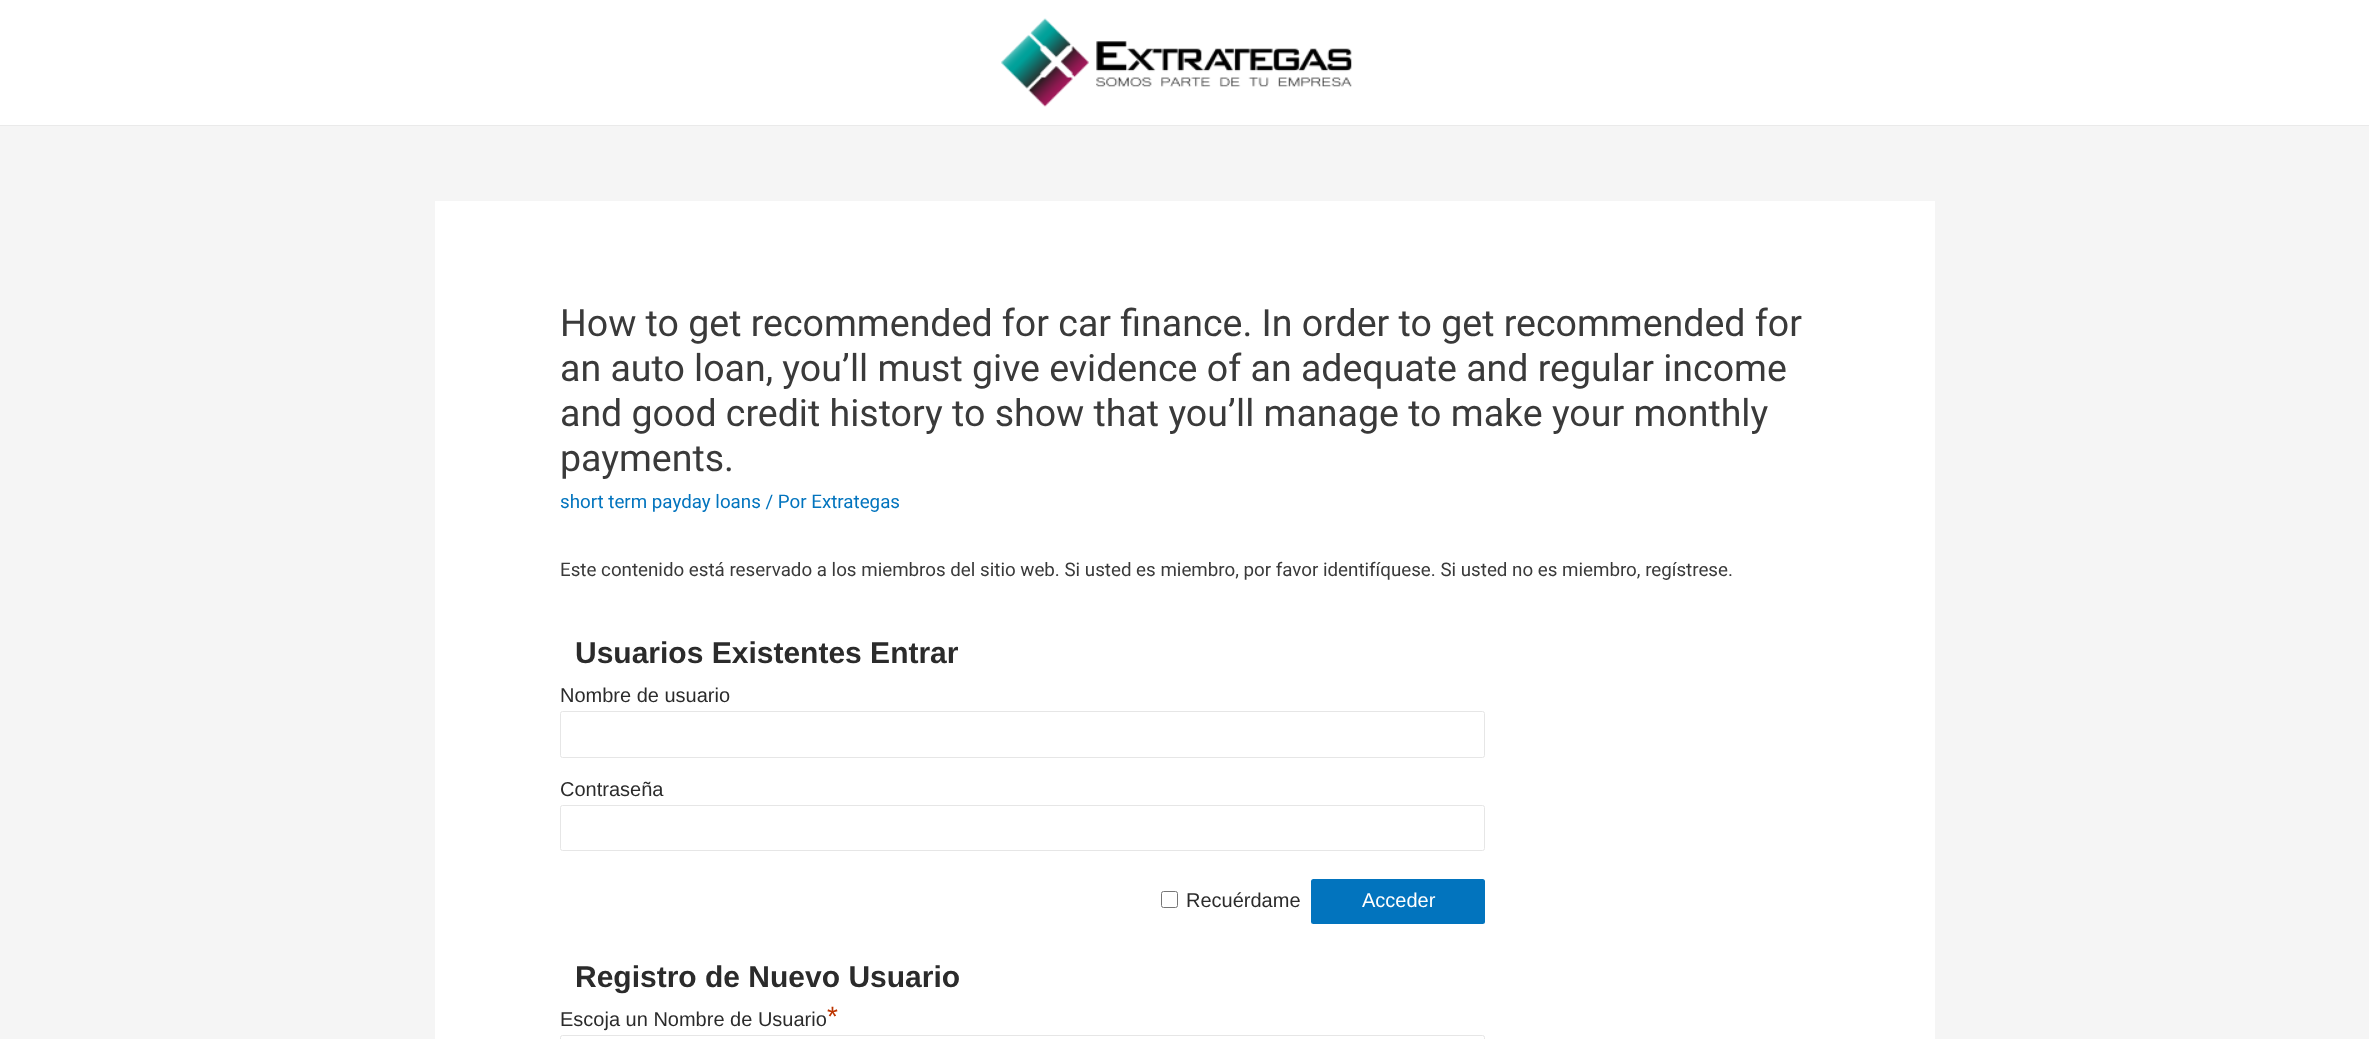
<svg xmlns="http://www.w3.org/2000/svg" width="2369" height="1039">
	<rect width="100%" height="100%" fill="#F5F5F5" />
	<rect x="0" y="0" width="2369" height="125" fill="#FFFFFF" />
	<rect x="0" y="125" width="2369" height="1" fill="#EAEAEA" />
	<image x="1001" y="18" width="351" height="89" href="assets/img1.png" />
	<rect x="435" y="201" width="1500" height="838" fill="#FFFFFF" />
	<g font-family="Roboto" font-size="37.5" fill="#3A3A3A">
		<text x="560" y="336">How to get recommended for car finance. In order to get recommended for</text>
		<text x="560" y="381">an auto loan, you’ll must give evidence of an adequate and regular income</text>
		<text x="560" y="426">and good credit history to show that you’ll manage to make your monthly</text>
		<text x="560" y="471">payments.</text>
	</g>
	<text x="560" y="508" font-family="Roboto" font-size="18.75" fill="#0274BE">short term payday loans / Por Extrategas</text>
	<text x="560" y="576" font-family="Roboto" font-size="18.75" fill="#3A3A3A">Este contenido está reservado a los miembros del sitio web. Si usted es miembro, por favor identifíquese. Si usted no es miembro, regístrese.</text>
	<text x="575" y="663" font-family="Liberation Sans" font-size="30" font-weight="700" fill="#2B2B2B">Usuarios Existentes Entrar</text>
	<text x="560" y="702" font-family="Liberation Sans" font-size="20" fill="#2B2B2B">Nombre de usuario</text>
	<rect x="560.5" y="711.5" width="924" height="46" rx="2" fill="none" stroke="#E6E6E6" />
	<text x="560" y="796" font-family="Liberation Sans" font-size="20" fill="#2B2B2B">Contraseña</text>
	<rect x="560.5" y="805.5" width="924" height="45" rx="2" fill="none" stroke="#E6E6E6" />
	<rect x="1161.5" y="891.5" width="16" height="16" rx="2" fill="none" stroke="#767676" />
	<text x="1186" y="907" font-family="Liberation Sans" font-size="20" fill="#2B2B2B">Recuérdame</text>
	<rect x="1311" y="879" width="174" height="45" rx="2.5" fill="#0274BE" />
	<text x="1362" y="907" font-family="Liberation Sans" font-size="20" fill="#FFFFFF">Acceder</text>
	<text x="575" y="987" font-family="Liberation Sans" font-size="30" font-weight="700" fill="#2B2B2B">Registro de Nuevo Usuario</text>
	<text x="560" y="1026" font-family="Liberation Sans" font-size="20" fill="#2B2B2B">Escoja un Nombre de Usuario</text>
	<text x="827" y="1026" font-family="Liberation Sans" font-size="28" fill="#BD3500">*</text>
	<rect x="560.5" y="1035.5" width="924" height="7" rx="2" fill="none" stroke="#E6E6E6" />
</svg>
